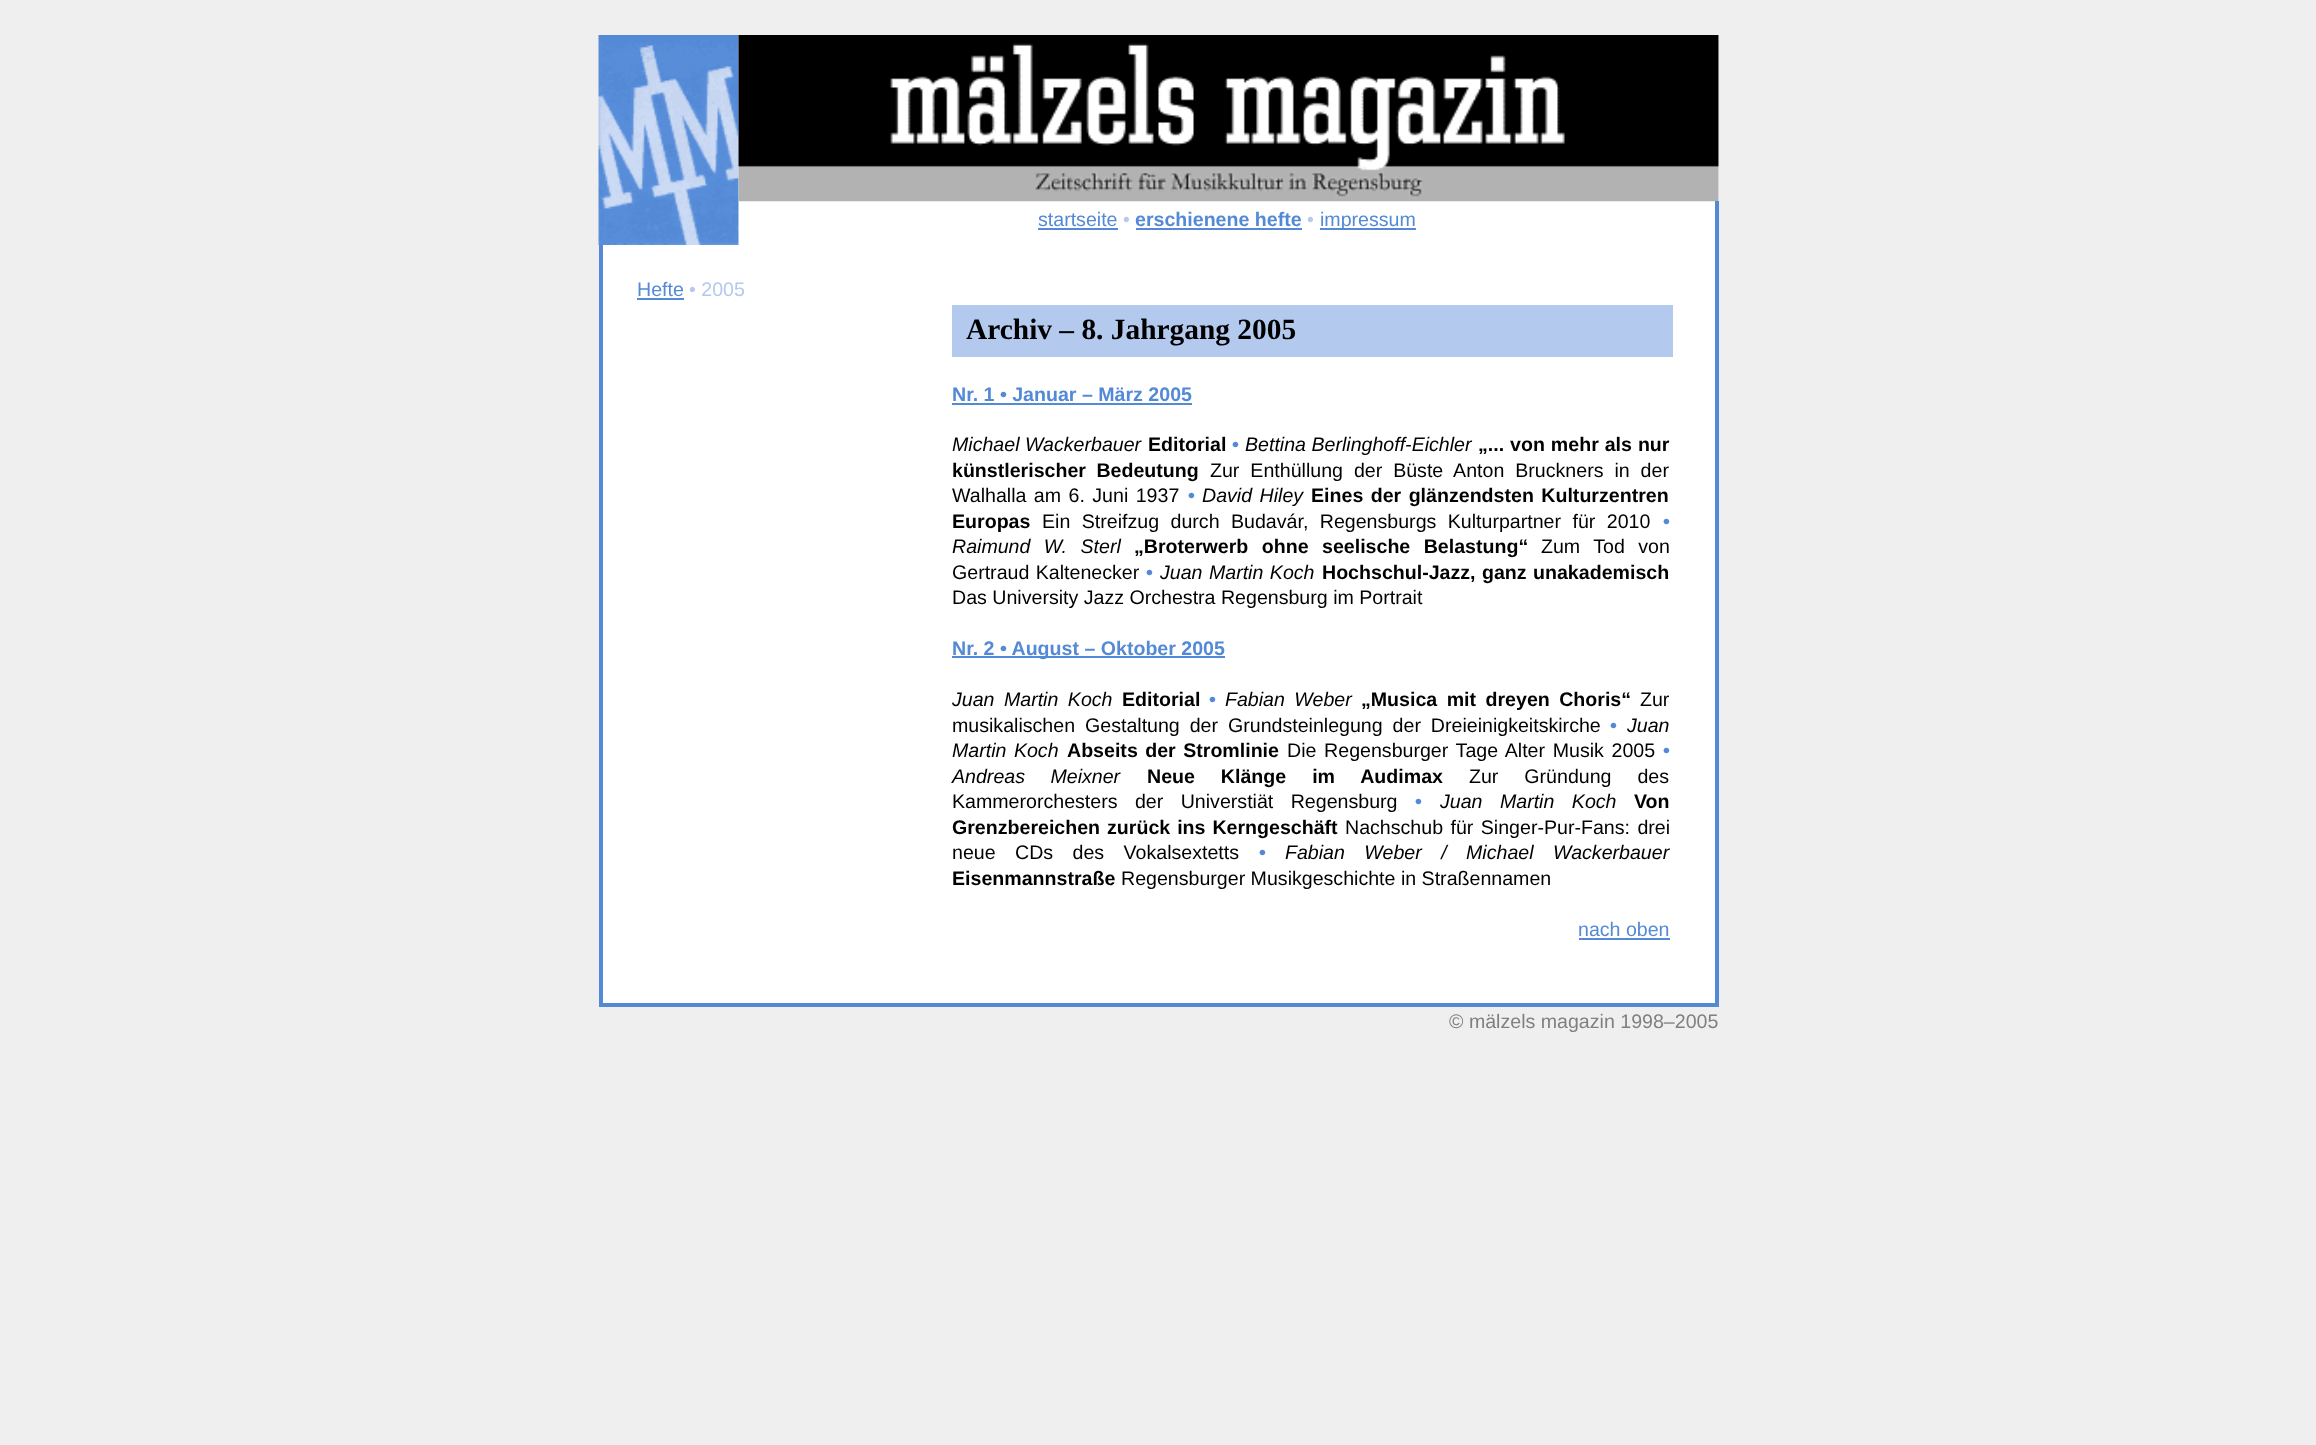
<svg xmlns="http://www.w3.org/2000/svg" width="2316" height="1445">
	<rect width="100%" height="100%" fill="#EFEFEF" />
	<rect x="738" y="35" width="981" height="210" fill="#FFFFFF" />
	<image x="598" y="35" width="141" height="210" href="assets/img1.png" />
	<image x="738" y="35" width="981" height="167" href="assets/img2.png" />
	<rect x="1715" y="201" width="4" height="805" fill="#5389D5" />
	<text x="1038" y="226" font-family="Liberation Sans" font-size="19.6" fill="#5389D5">startseite</text>
	<rect x="1038" y="228" width="80" height="2" fill="#5389D5" />
	<text x="1123" y="226" font-family="Liberation Sans" font-size="19.6" fill="#B3C9EE">•</text>
	<text x="1135" y="226" font-family="Liberation Sans" font-size="19.6" font-weight="700" fill="#5389D5">erschienene hefte</text>
	<rect x="1136" y="228" width="166" height="2" fill="#5389D5" />
	<text x="1307" y="226" font-family="Liberation Sans" font-size="19.6" fill="#B3C9EE">•</text>
	<rect x="1320" y="228" width="96" height="2" fill="#5389D5" />
	<text x="1320" y="226" font-family="Liberation Sans" font-size="19.6" fill="#5389D5">impressum</text>
	<rect x="603" y="245" width="1112" height="758" fill="#FFFFFF" />
	<rect x="599" y="1003" width="1120" height="4" fill="#5389D5" />
	<rect x="599" y="245" width="4" height="761" fill="#5389D5" />
	<text x="637" y="296" font-family="Liberation Sans" font-size="19.6" fill="#5389D5">Hefte</text>
	<rect x="637" y="298" width="47" height="2" fill="#5389D5" />
	<text x="689" y="296" font-family="Liberation Sans" font-size="19.6" fill="#B3C9EE">• 2005</text>
	<rect x="952" y="305" width="721" height="52" fill="#B3C9EE" />
	<text x="966" y="339" font-family="Liberation Serif" font-size="29.4" font-weight="700" fill="#000000">Archiv – 8. Jahrgang 2005</text>
	<text x="952" y="401" font-family="Liberation Sans" font-size="19.6" font-weight="700" fill="#5389D5">Nr. 1 • Januar – März 2005</text>
	<rect x="952" y="403" width="240" height="2" fill="#5389D5" />
	<text x="952" y="451" font-family="Liberation Sans" font-size="19.6" font-style="italic" fill="#000000">Michael Wackerbauer</text>
	<text x="1148" y="451" font-family="Liberation Sans" font-size="19.6" font-weight="700" fill="#000000">Editorial</text>
	<text x="1232" y="451" font-family="Liberation Sans" font-size="19.6" font-weight="700" fill="#5389D5">•</text>
	<text x="1245" y="451" font-family="Liberation Sans" font-size="19.6" font-style="italic" fill="#000000">Bettina Berlinghoff-Eichler</text>
	<g font-family="Liberation Sans" font-size="19.6" font-weight="700" fill="#000000">
		<text x="1478" y="451" word-spacing="0.5">„... von mehr als nur</text>
		<text x="952" y="477" word-spacing="5">künstlerischer Bedeutung</text>
	</g>
	<g font-family="Liberation Sans" font-size="19.6" fill="#000000">
		<text x="1210" y="477" word-spacing="5.5">Zur Enthüllung der Büste Anton Bruckners in der</text>
		<text x="952" y="502" word-spacing="2">Walhalla am 6. Juni 1937</text>
	</g>
	<text x="1188" y="502" font-family="Liberation Sans" font-size="19.6" font-weight="700" fill="#5389D5">•</text>
	<text x="1202" y="502" word-spacing="2" font-family="Liberation Sans" font-size="19.6" font-style="italic" fill="#000000">David Hiley</text>
	<g font-family="Liberation Sans" font-size="19.6" font-weight="700" fill="#000000">
		<text x="1311" y="502" word-spacing="2">Eines der glänzendsten Kulturzentren</text>
		<text x="952" y="528">Europas</text>
	</g>
	<text x="1042" y="528" word-spacing="6" font-family="Liberation Sans" font-size="19.6" fill="#000000">Ein Streifzug durch Budavár, Regensburgs Kulturpartner für 2010</text>
	<text x="1663" y="528" font-family="Liberation Sans" font-size="19.6" font-weight="700" fill="#5389D5">•</text>
	<text x="952" y="553" word-spacing="8" font-family="Liberation Sans" font-size="19.6" font-style="italic" fill="#000000">Raimund W. Sterl</text>
	<text x="1134" y="553" word-spacing="8" font-family="Liberation Sans" font-size="19.6" font-weight="700" fill="#000000">„Broterwerb ohne seelische Belastung“</text>
	<g font-family="Liberation Sans" font-size="19.6" fill="#000000">
		<text x="1541" y="553" word-spacing="8">Zum Tod von</text>
		<text x="952" y="579" word-spacing="1">Gertraud Kaltenecker</text>
	</g>
	<text x="1146" y="579" font-family="Liberation Sans" font-size="19.6" font-weight="700" fill="#5389D5">•</text>
	<text x="1160" y="579" word-spacing="1" font-family="Liberation Sans" font-size="19.6" font-style="italic" fill="#000000">Juan Martin Koch</text>
	<text x="1322" y="579" word-spacing="1" font-family="Liberation Sans" font-size="19.6" font-weight="700" fill="#000000">Hochschul-Jazz, ganz unakademisch</text>
	<text x="952" y="604" font-family="Liberation Sans" font-size="19.6" fill="#000000">Das University Jazz Orchestra Regensburg im Portrait</text>
	<rect x="952" y="656" width="273" height="2" fill="#5389D5" />
	<text x="952" y="655" font-family="Liberation Sans" font-size="19.6" font-weight="700" fill="#5389D5">Nr. 2 • August – Oktober 2005</text>
	<text x="952" y="706" word-spacing="4" font-family="Liberation Sans" font-size="19.6" font-style="italic" fill="#000000">Juan Martin Koch</text>
	<text x="1122" y="706" font-family="Liberation Sans" font-size="19.6" font-weight="700" fill="#000000">Editorial</text>
	<text x="1209" y="706" font-family="Liberation Sans" font-size="19.6" font-weight="700" fill="#5389D5">•</text>
	<text x="1225" y="706" word-spacing="4" font-family="Liberation Sans" font-size="19.6" font-style="italic" fill="#000000">Fabian Weber</text>
	<text x="1361" y="706" word-spacing="4" font-family="Liberation Sans" font-size="19.6" font-weight="700" fill="#000000">„Musica mit dreyen Choris“</text>
	<g font-family="Liberation Sans" font-size="19.6" fill="#000000">
		<text x="1640" y="706">Zur</text>
		<text x="952" y="732" word-spacing="4.5">musikalischen Gestaltung der Grundsteinlegung der Dreieinigkeitskirche</text>
	</g>
	<text x="1610" y="732" font-family="Liberation Sans" font-size="19.6" font-weight="700" fill="#5389D5">•</text>
	<g font-family="Liberation Sans" font-size="19.6" font-style="italic" fill="#000000">
		<text x="1627" y="732">Juan</text>
		<text x="952" y="757" word-spacing="2">Martin Koch</text>
	</g>
	<text x="1067" y="757" word-spacing="2" font-family="Liberation Sans" font-size="19.6" font-weight="700" fill="#000000">Abseits der Stromlinie</text>
	<text x="1287" y="757" word-spacing="2.25" font-family="Liberation Sans" font-size="19.6" fill="#000000">Die Regensburger Tage Alter Musik 2005</text>
	<text x="1663" y="757" font-family="Liberation Sans" font-size="19.6" font-weight="700" fill="#5389D5">•</text>
	<text x="952" y="783" word-spacing="20" font-family="Liberation Sans" font-size="19.6" font-style="italic" fill="#000000">Andreas Meixner</text>
	<text x="1147" y="783" word-spacing="20.5" font-family="Liberation Sans" font-size="19.6" font-weight="700" fill="#000000">Neue Klänge im Audimax</text>
	<g font-family="Liberation Sans" font-size="19.6" fill="#000000">
		<text x="1469" y="783" word-spacing="20.5">Zur Gründung des</text>
		<text x="952" y="808" word-spacing="12">Kammerorchesters der Universtiät Regensburg</text>
	</g>
	<text x="1415" y="808" font-family="Liberation Sans" font-size="19.6" font-weight="700" fill="#5389D5">•</text>
	<text x="1440" y="808" word-spacing="12" font-family="Liberation Sans" font-size="19.6" font-style="italic" fill="#000000">Juan Martin Koch</text>
	<g font-family="Liberation Sans" font-size="19.6" font-weight="700" fill="#000000">
		<text x="1634" y="808">Von</text>
		<text x="952" y="834" word-spacing="1.5">Grenzbereichen zurück ins Kerngeschäft</text>
	</g>
	<g font-family="Liberation Sans" font-size="19.6" fill="#000000">
		<text x="1345" y="834" word-spacing="2">Nachschub für Singer-Pur-Fans: drei</text>
		<text x="952" y="859" word-spacing="14">neue CDs des Vokalsextetts</text>
	</g>
	<text x="1259" y="859" font-family="Liberation Sans" font-size="19.6" font-weight="700" fill="#5389D5">•</text>
	<text x="1285" y="859" word-spacing="14" font-family="Liberation Sans" font-size="19.6" font-style="italic" fill="#000000">Fabian Weber / Michael Wackerbauer</text>
	<text x="952" y="885" font-family="Liberation Sans" font-size="19.6" font-weight="700" fill="#000000">Eisenmannstraße</text>
	<text x="1121" y="885" font-family="Liberation Sans" font-size="19.6" fill="#000000">Regensburger Musikgeschichte in Straßennamen</text>
	<text x="1578" y="936" font-family="Liberation Sans" font-size="19.6" fill="#5389D5">nach oben</text>
	<rect x="1579" y="938" width="91" height="2" fill="#5389D5" />
	<text x="1449" y="1028" font-family="Liberation Sans" font-size="19.6" fill="#808080">© mälzels magazin 1998–2005</text>
</svg>
